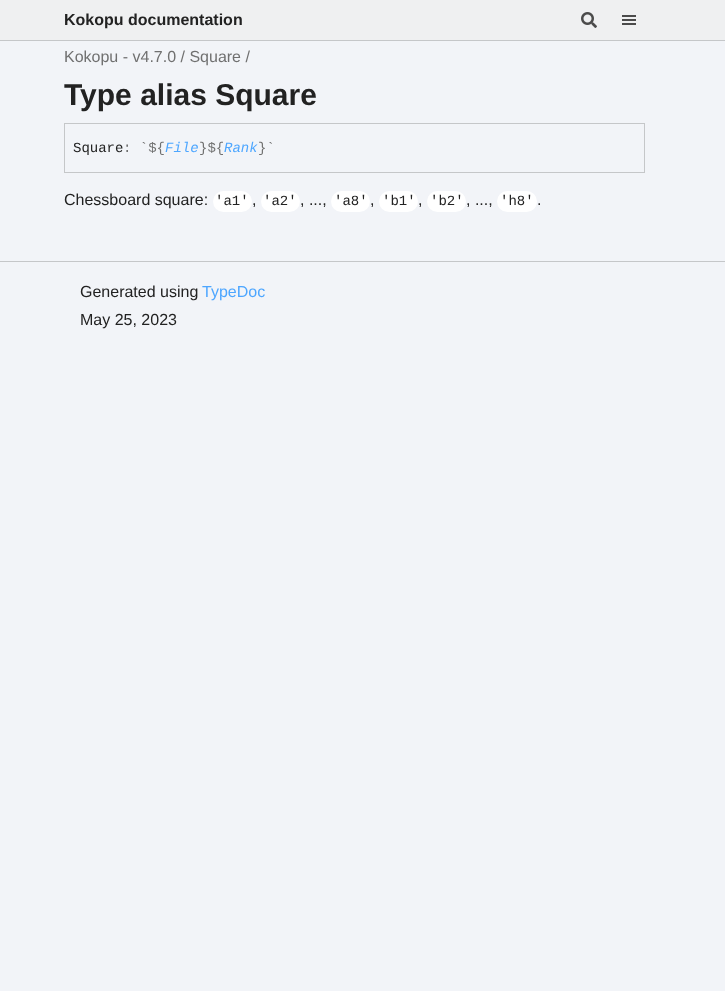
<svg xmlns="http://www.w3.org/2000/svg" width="725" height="991">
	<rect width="100%" height="100%" fill="#F2F4F8" />
	<rect x="0" y="0" width="725" height="40" fill="#EFF0F1" />
	<rect x="0" y="40" width="725" height="1" fill="#C5C7C9" />
	<text x="64" y="25" font-family="Liberation Sans" font-size="16" font-weight="700" fill="#222222">Kokopu documentation</text>
	<image x="581" y="12" width="16" height="16" href="assets/img1.png" />
	<rect x="622" y="15" width="14" height="2" fill="#4B4B4B" />
	<rect x="622" y="19" width="14" height="2" fill="#4B4B4B" />
	<rect x="622" y="23" width="14" height="2" fill="#4B4B4B" />
	<text x="64" y="62" font-family="Liberation Sans" font-size="16" fill="#707070">Kokopu - v4.7.0 / Square /</text>
	<text x="64" y="105" font-family="Liberation Sans" font-size="30" font-weight="700" fill="#222222">Type alias Square</text>
	<rect x="64.5" y="123.5" width="580" height="49" fill="none" stroke="#C5C7C9" />
	<text x="73" y="152" font-family="Liberation Mono" font-size="14" fill="#222222">Square</text>
	<text x="123" y="152" font-family="Liberation Mono" font-size="14" fill="#707070">: `${</text>
	<text x="165" y="152" font-family="Liberation Mono" font-size="14" font-style="italic" fill="#4DA6FF">File</text>
	<text x="199" y="152" font-family="Liberation Mono" font-size="14" fill="#707070">}${</text>
	<text x="224" y="152" font-family="Liberation Mono" font-size="14" font-style="italic" fill="#4DA6FF">Rank</text>
	<text x="258" y="152" font-family="Liberation Mono" font-size="14" fill="#707070">}`</text>
	<text x="64" y="205" font-family="Liberation Sans" font-size="16" fill="#222222">Chessboard square:</text>
	<rect x="213" y="191" width="39" height="21" rx="10.5" fill="#FFFFFF" />
	<text x="215" y="205" font-family="Liberation Mono" font-size="14" fill="#222222">'a1'</text>
	<text x="252" y="205" font-family="Liberation Sans" font-size="16" fill="#222222">,</text>
	<rect x="261" y="191" width="39" height="21" rx="10.5" fill="#FFFFFF" />
	<text x="263" y="205" font-family="Liberation Mono" font-size="14" fill="#222222">'a2'</text>
	<text x="300" y="205" font-family="Liberation Sans" font-size="16" fill="#222222">, ...,</text>
	<rect x="331" y="191" width="39" height="21" rx="10.5" fill="#FFFFFF" />
	<text x="334" y="205" font-family="Liberation Mono" font-size="14" fill="#222222">'a8'</text>
	<text x="370" y="205" font-family="Liberation Sans" font-size="16" fill="#222222">,</text>
	<rect x="379" y="191" width="39" height="21" rx="10.5" fill="#FFFFFF" />
	<text x="382" y="205" font-family="Liberation Mono" font-size="14" fill="#222222">'b1'</text>
	<text x="418" y="205" font-family="Liberation Sans" font-size="16" fill="#222222">,</text>
	<rect x="427" y="191" width="39" height="21" rx="10.5" fill="#FFFFFF" />
	<text x="430" y="205" font-family="Liberation Mono" font-size="14" fill="#222222">'b2'</text>
	<text x="466" y="205" font-family="Liberation Sans" font-size="16" fill="#222222">, ...,</text>
	<rect x="497" y="191" width="40" height="21" rx="10.5" fill="#FFFFFF" />
	<text x="500" y="205" font-family="Liberation Mono" font-size="14" fill="#222222">'h8'</text>
	<text x="537" y="205" font-family="Liberation Sans" font-size="16" fill="#222222">.</text>
	<rect x="0" y="261" width="725" height="1" fill="#C5C7C9" />
	<text x="80" y="297" font-family="Liberation Sans" font-size="16" fill="#222222">Generated using</text>
	<text x="202" y="297" font-family="Liberation Sans" font-size="16" fill="#4DA6FF">TypeDoc</text>
	<text x="80" y="325" font-family="Liberation Sans" font-size="16" fill="#222222">May 25, 2023</text>
</svg>
